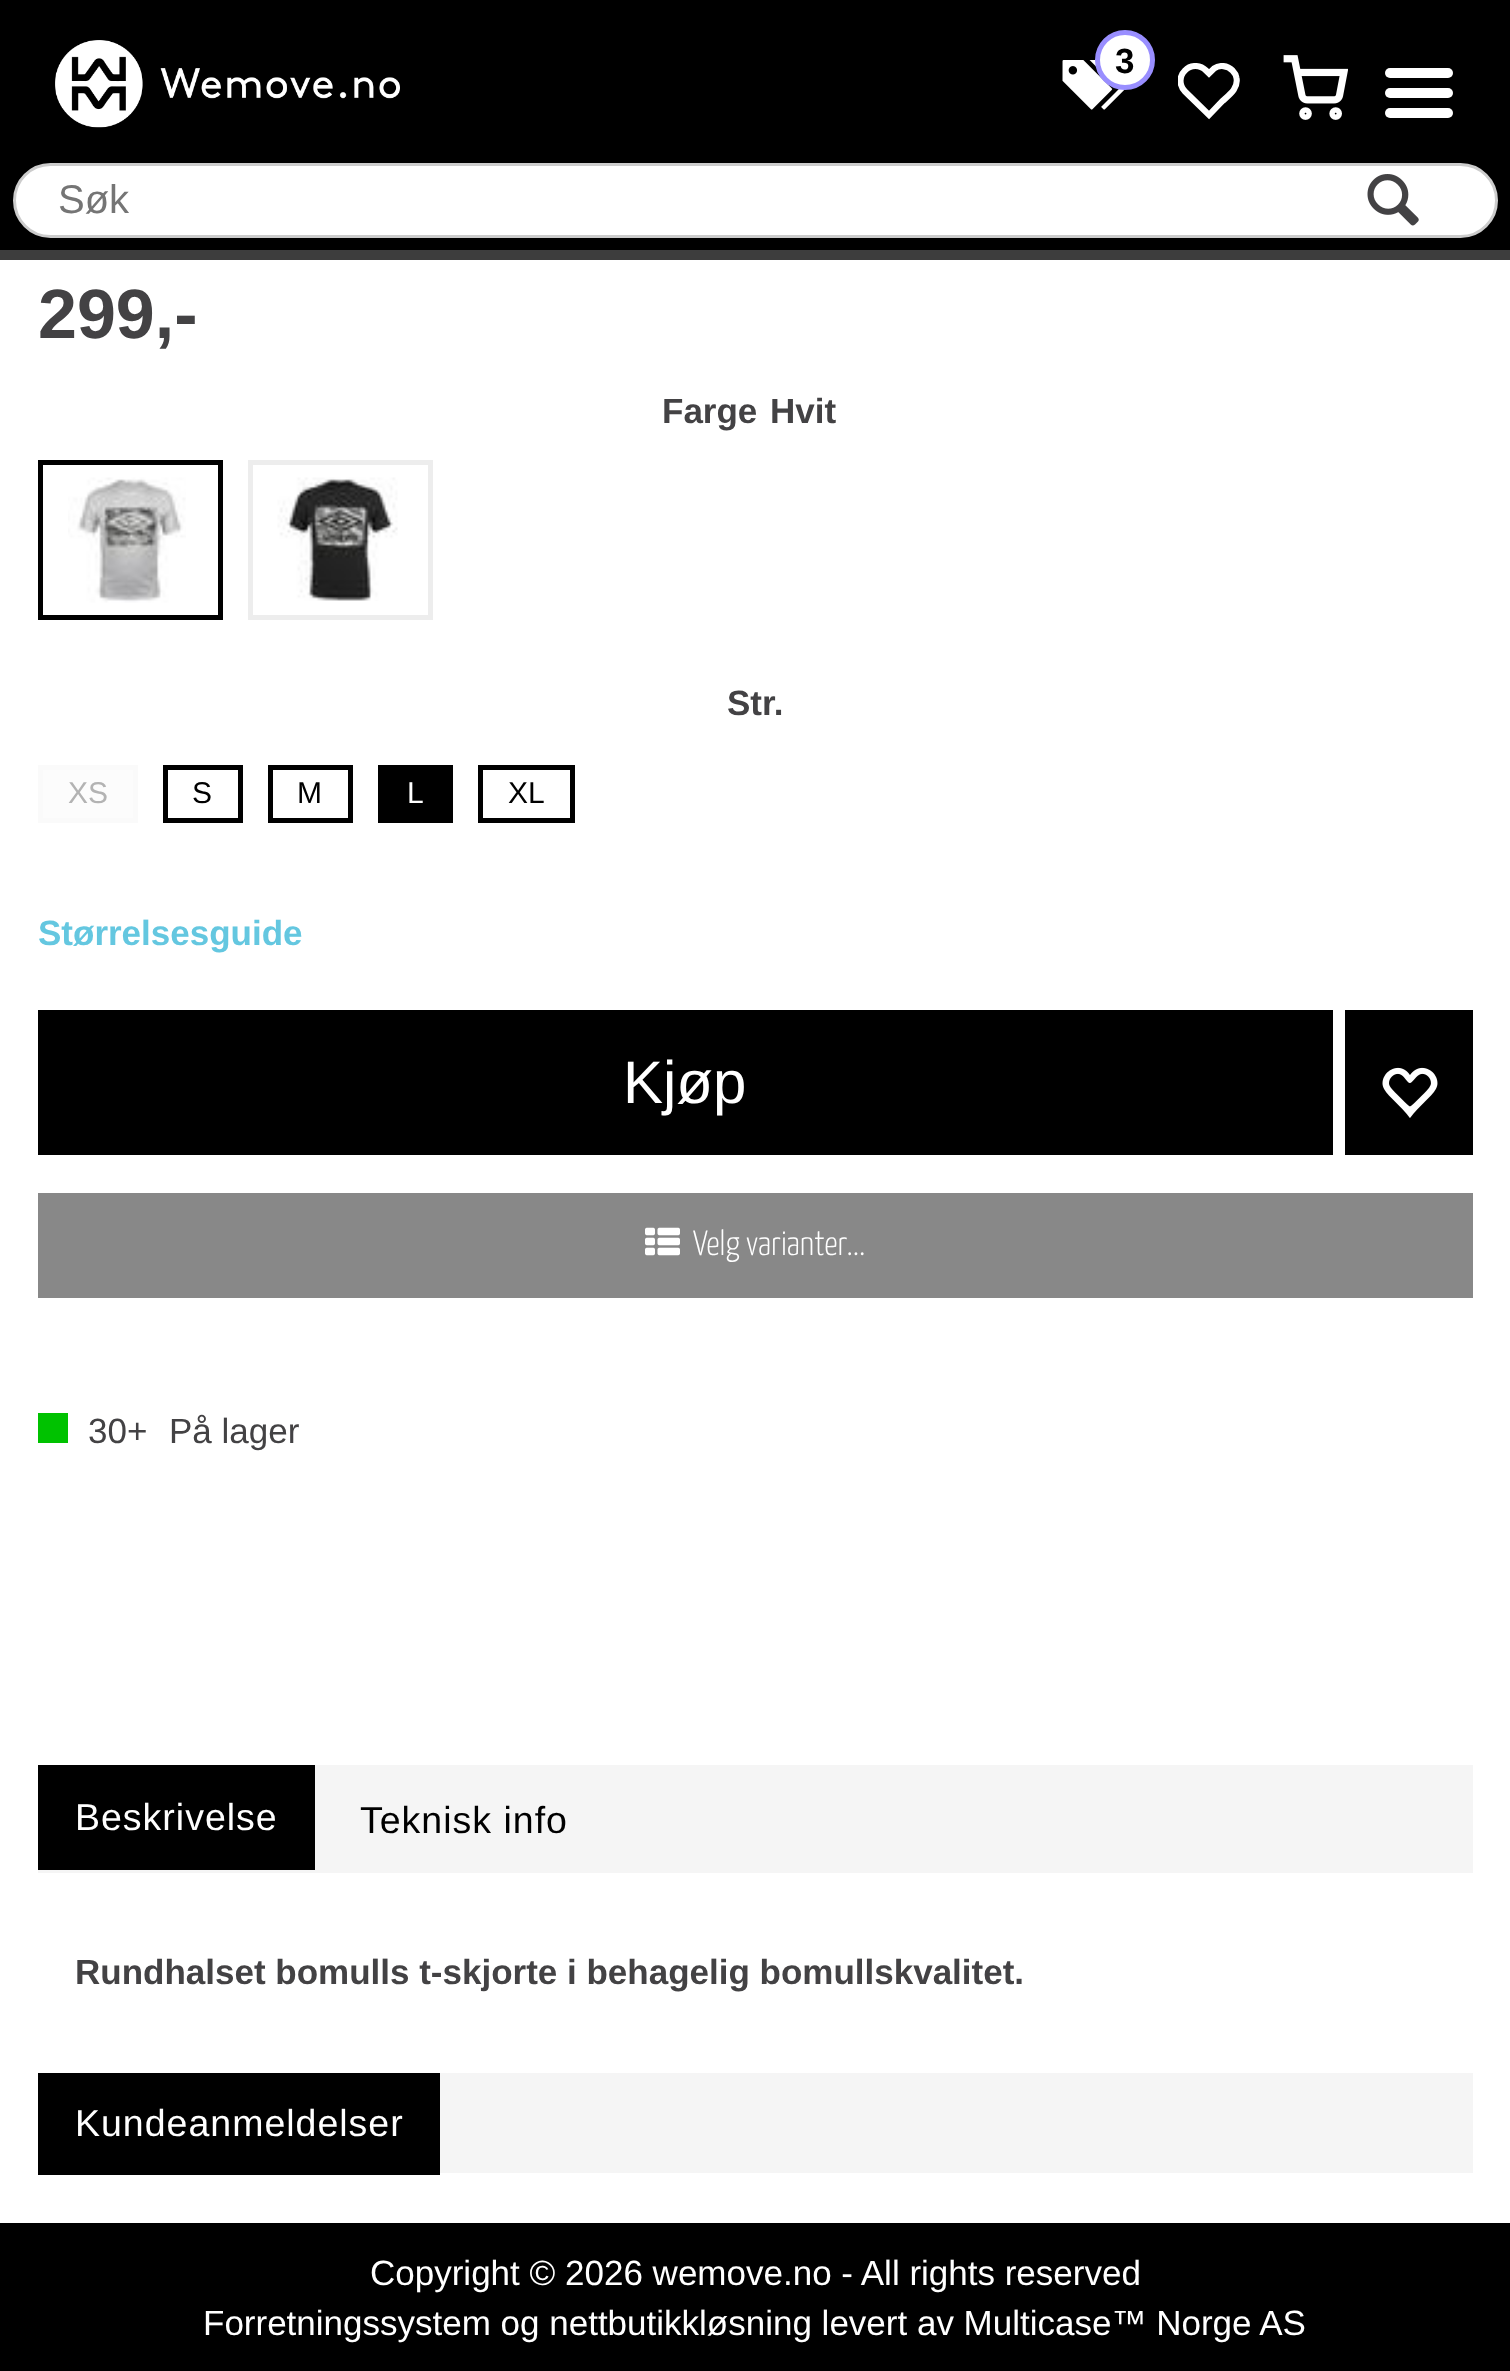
<svg xmlns="http://www.w3.org/2000/svg" width="1510" height="2371">
	<defs>
		<clipPath id="clip1"><rect x="1178" y="63" width="62" height="57" /></clipPath>
	</defs>
	<rect width="100%" height="100%" fill="#FFFFFF" />
	<rect x="0" y="0" width="1510" height="250" fill="#000000" />
	<rect x="0" y="250" width="1510" height="10" fill="#3D3D3D" />
	<image x="55" y="40" width="345" height="88" href="assets/img1.png" />
	<image x="1062" y="60" width="63" height="50" href="assets/img2.png" />
	<circle cx="1125" cy="60" r="27.5" fill="#FFFFFF" stroke="#998EFF" stroke-width="5" />
	<text x="1115" y="73" font-family="Liberation Sans" font-size="35" font-weight="700" fill="#000000">3</text>
	<g clip-path="url(#clip1)">
		<path d="M1232.5 70.5C1227.5 65.5 1219.5 64.5 1214 68.5L1209 73.5L1206 70.5C1200 64.5 1190.5 64.5 1185 70.5C1179 76 1179 85.5 1185 91.5L1209 115L1222.5 101C1229 95 1238.5 88.5 1236.5 78C1236 75 1234.5 72.5 1232.5 70.5Z" fill="none" stroke="#FFFFFF" stroke-width="6.1" />
	</g>
	<image x="1283" y="55" width="65" height="65" href="assets/img3.png" />
	<rect x="1385" y="68" width="68" height="10" rx="5" fill="#FFFFFF" />
	<rect x="1385" y="88" width="68" height="10" rx="5" fill="#FFFFFF" />
	<rect x="1385" y="108" width="68" height="10" rx="5" fill="#FFFFFF" />
	<rect x="14.5" y="164.5" width="1482" height="72" rx="36" fill="#FFFFFF" stroke="#CCCCCC" stroke-width="3" />
	<text x="58" y="213" font-family="Liberation Sans" font-size="40" fill="#757575">Søk</text>
	<image x="1367" y="174" width="52" height="52" href="assets/img4.png" />
	<text x="38" y="338" font-family="Liberation Sans" font-size="70" font-weight="700" fill="#434244">299,-</text>
	<g font-family="Liberation Sans" font-size="35" font-weight="700" fill="#434244">
		<text x="662" y="423">Farge</text>
		<text x="770" y="423">Hvit</text>
	</g>
	<rect x="40.5" y="462.5" width="180" height="155" fill="none" stroke="#000000" stroke-width="5" />
	<image x="68" y="477" width="118" height="126" href="assets/img5.png" />
	<rect x="250.5" y="462.5" width="180" height="155" fill="none" stroke="#EDEDED" stroke-width="5" />
	<image x="277" y="477" width="121" height="124" href="assets/img6.png" />
	<text x="727" y="715" font-family="Liberation Sans" font-size="35" font-weight="700" fill="#434244">Str.</text>
	<rect x="40.5" y="767.5" width="95" height="53" fill="#FCFCFC" stroke="#FAFAFA" stroke-width="5" />
	<text x="68" y="803" font-family="Liberation Sans" font-size="30" fill="#B3B3B3">XS</text>
	<rect x="165.5" y="767.5" width="75" height="53" fill="none" stroke="#000000" stroke-width="5" />
	<text x="192" y="803" font-family="Liberation Sans" font-size="30" fill="#000000">S</text>
	<rect x="270.5" y="767.5" width="80" height="53" fill="none" stroke="#000000" stroke-width="5" />
	<text x="297" y="803" font-family="Liberation Sans" font-size="30" fill="#000000">M</text>
	<rect x="378" y="765" width="75" height="58" fill="#000000" />
	<text x="407" y="803" font-family="Liberation Sans" font-size="30" fill="#FFFFFF">L</text>
	<rect x="480.5" y="767.5" width="92" height="53" fill="none" stroke="#000000" stroke-width="5" />
	<text x="508" y="803" font-family="Liberation Sans" font-size="30" fill="#000000">XL</text>
	<text x="38" y="945" font-family="Liberation Sans" font-size="35" font-weight="700" fill="#64C7E0">Størrelsesguide</text>
	<rect x="38" y="1010" width="1295" height="145" fill="#000000" />
	<text x="623" y="1103" font-family="Liberation Sans" font-size="60" fill="#FFFFFF">Kjøp</text>
	<rect x="1345" y="1010" width="128" height="145" fill="#000000" />
	<image x="1382" y="1067" width="56" height="51" href="assets/img7.png" />
	<rect x="38" y="1193" width="1435" height="105" fill="#888888" />
	<image x="645" y="1227" width="35" height="29" href="assets/img8.png" />
	<text x="693" y="1255" font-family="Yanone Kaffeesatz" font-size="35" font-weight="300" fill="#FFFFFF">Velg varianter...</text>
	<text x="88" y="1443" font-family="Liberation Sans" font-size="35" fill="#434244">30+</text>
	<rect x="38" y="1413" width="30" height="30" fill="#00C200" />
	<text x="169" y="1443" font-family="Liberation Sans" font-size="35" fill="#434244">På lager</text>
	<rect x="38" y="1765" width="1435" height="108" fill="#F5F5F5" />
	<rect x="38" y="1765" width="277" height="105" fill="#000000" />
	<text x="75" y="1830" font-family="Liberation Sans" font-size="37.5" letter-spacing="1" fill="#FFFFFF">Beskrivelse</text>
	<text x="360" y="1833" font-family="Liberation Sans" font-size="37.5" letter-spacing="1" fill="#000000">Teknisk info</text>
	<text x="75" y="1984" font-family="Liberation Sans" font-size="35" font-weight="700" fill="#434244">Rundhalset bomulls t-skjorte i behagelig bomullskvalitet.</text>
	<rect x="440" y="2073" width="1033" height="100" fill="#F5F5F5" />
	<rect x="38" y="2073" width="402" height="102" fill="#000000" />
	<text x="75" y="2136" font-family="Liberation Sans" font-size="37.5" letter-spacing="1" fill="#FFFFFF">Kundeanmeldelser</text>
	<rect x="0" y="2223" width="1510" height="148" fill="#000000" />
	<g font-family="Liberation Sans" font-size="35" fill="#FFFFFF">
		<text x="370" y="2285">Copyright © 2026 wemove.no - All rights reserved</text>
		<text x="203" y="2335">Forretningssystem og nettbutikkløsning levert av Multicase™ Norge AS</text>
	</g>
</svg>
